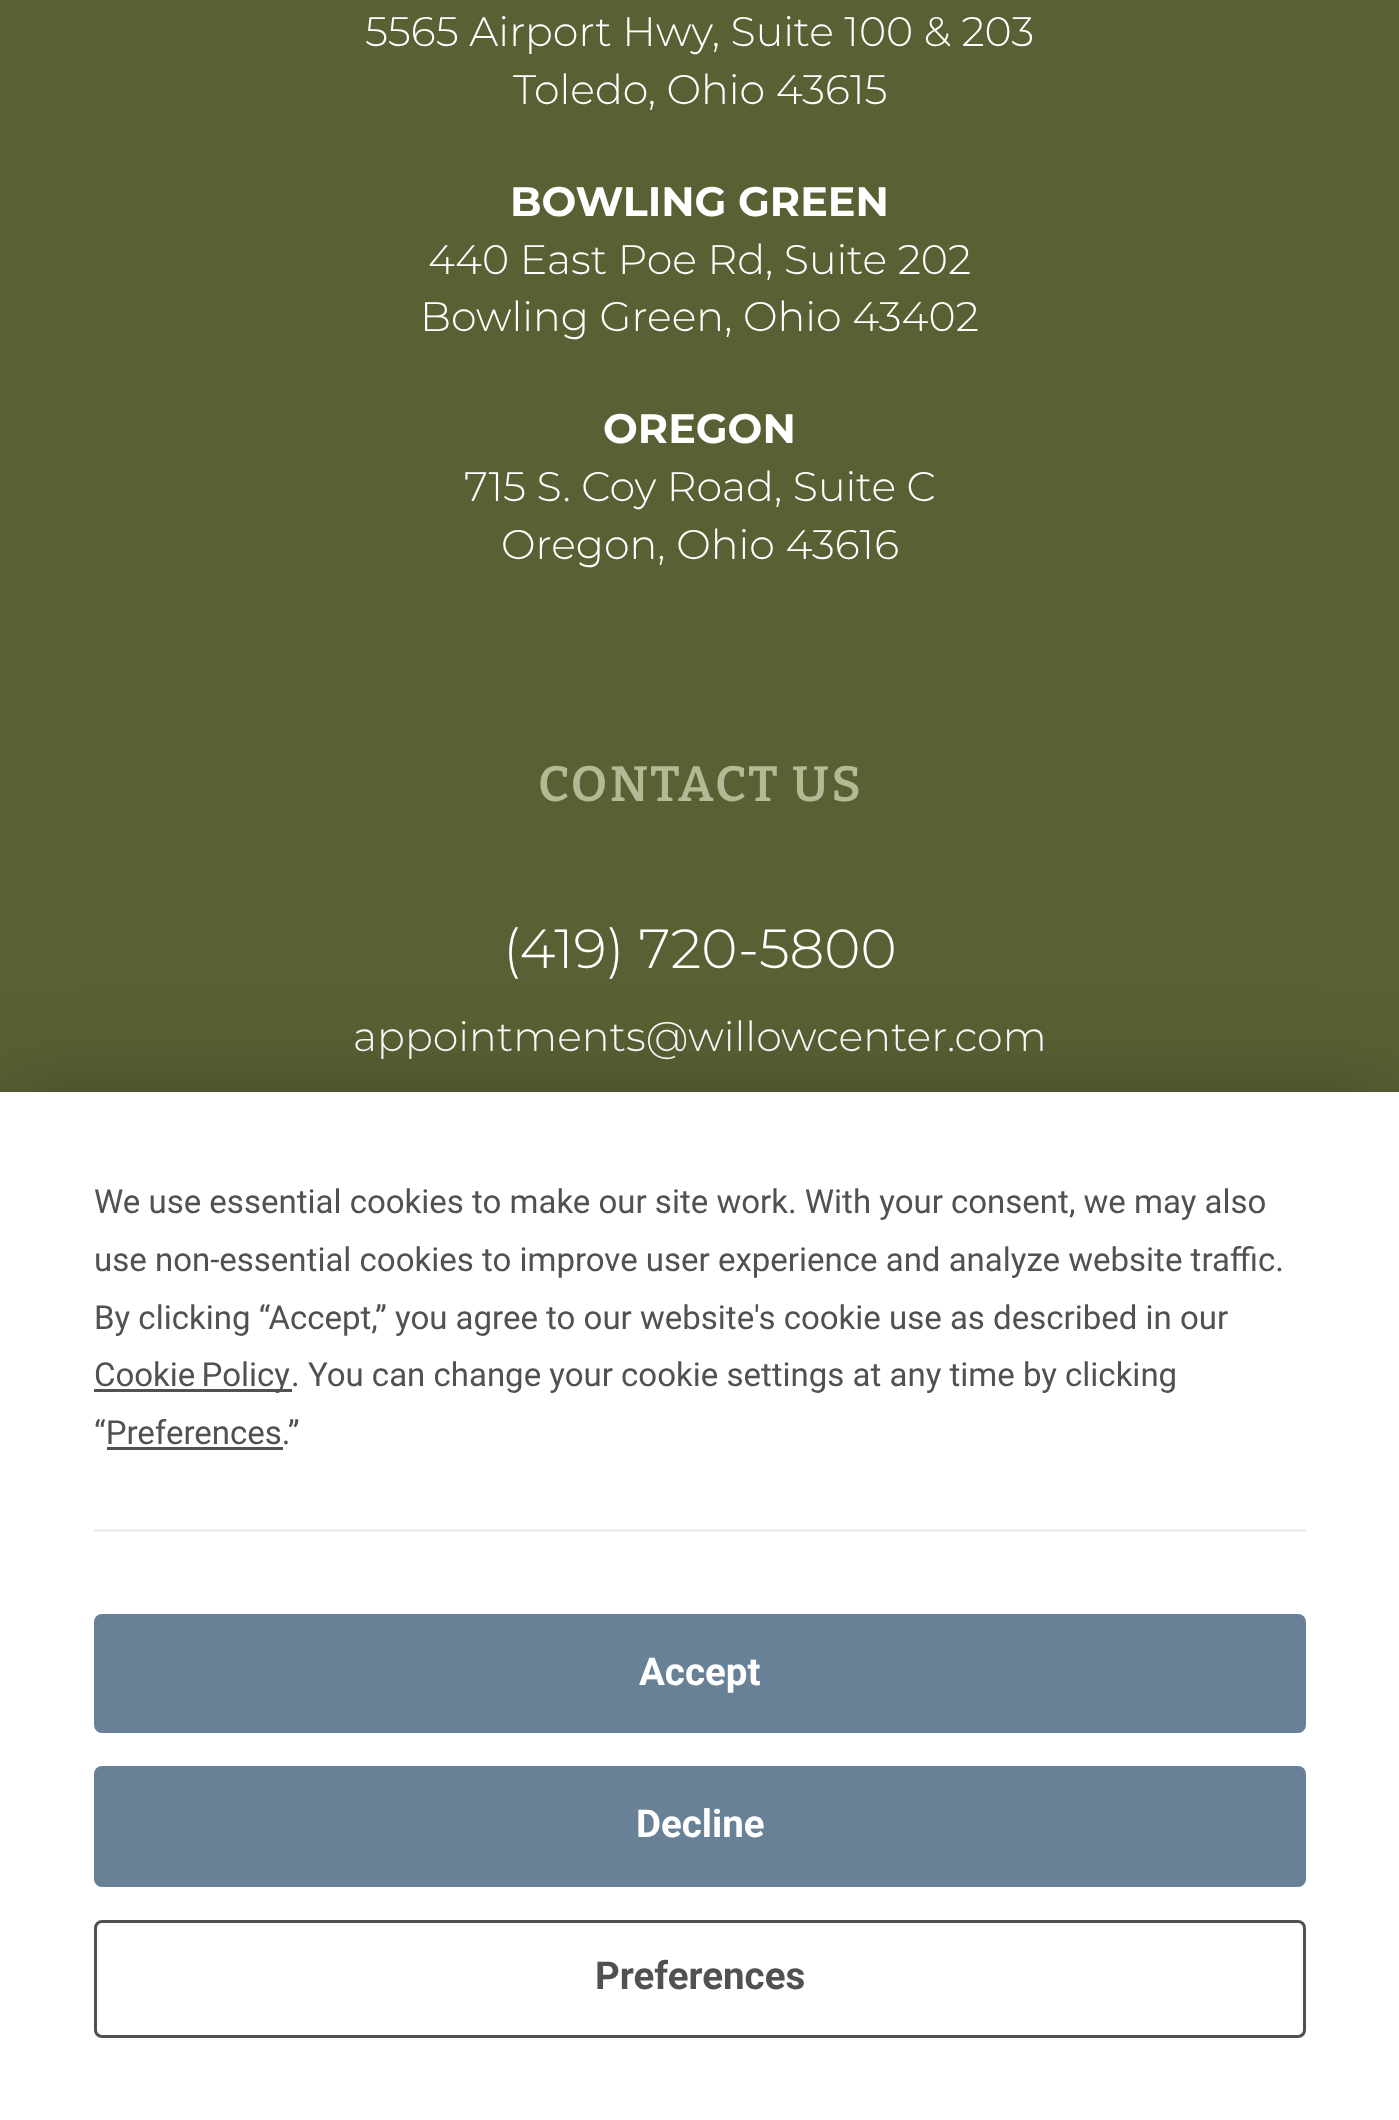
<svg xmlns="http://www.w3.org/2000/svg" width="1399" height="2120">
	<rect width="100%" height="100%" fill="#596134" />
	<g font-family="Montserrat" font-size="41.25" font-weight="300" fill="#FFFFFF">
		<text x="365" y="46">5565 Airport Hwy, Suite 100 &amp; 203</text>
		<text x="513" y="104">Toledo, Ohio 43615</text>
	</g>
	<text x="510" y="216" font-family="Montserrat" font-size="41.25" font-weight="700" fill="#FFFFFF">BOWLING GREEN</text>
	<g font-family="Montserrat" font-size="41.25" font-weight="300" fill="#FFFFFF">
		<text x="428" y="274">440 East Poe Rd, Suite 202</text>
		<text x="420" y="331">Bowling Green, Ohio 43402</text>
	</g>
	<text x="603" y="443" font-family="Montserrat" font-size="41.25" font-weight="700" fill="#FFFFFF">OREGON</text>
	<g font-family="Montserrat" font-size="41.25" font-weight="300" fill="#FFFFFF">
		<text x="464" y="501">715 S. Coy Road, Suite C</text>
		<text x="501" y="559">Oregon, Ohio 43616</text>
	</g>
	<text x="538" y="801" font-family="Bitter" font-size="49.5" font-weight="600" letter-spacing="2.5" fill="#B3B995">CONTACT US</text>
	<text x="503" y="968" font-family="Montserrat" font-size="55" font-weight="300" fill="#FFFFFF">(419) 720-5800</text>
	<text x="353" y="1051" font-family="Montserrat" font-size="41.25" font-weight="300" fill="#FFFFFF">appointments@willowcenter.com</text>
	<rect x="0" y="1092" width="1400" height="1028" fill="#000000" fill-opacity="0.25" filter="blur(48px)" />
	<rect x="0" y="1092" width="1399" height="1028" fill="#FFFFFF" />
	<g font-family="Roboto" font-size="33" fill="#515151">
		<text x="94" y="1213">We use essential cookies to make our site work. With your consent, we may also</text>
		<text x="94" y="1271">use non-essential cookies to improve user experience and analyze website traffic.</text>
		<text x="94" y="1329">By clicking “Accept,” you agree to our website's cookie use as described in our</text>
	</g>
	<rect x="94" y="1389" width="198" height="3" fill="#515151" />
	<g font-family="Roboto" font-size="33" fill="#515151">
		<text x="94" y="1386" word-spacing="-2">Cookie Policy</text>
		<text x="291" y="1386">. You can change your cookie settings at any time by clicking</text>
		<text x="94" y="1444">“Preferences.”</text>
	</g>
	<rect x="107" y="1447" width="176" height="3" fill="#515151" />
	<rect x="94" y="1529" width="1212" height="3" fill="#EDEDEF" />
	<rect x="95.5" y="1615.5" width="1209" height="116" rx="6.5" fill="#688197" stroke="#688197" stroke-width="3" />
	<text x="639" y="1685" font-family="Roboto" font-size="38.5" font-weight="700" fill="#FFFFFF">Accept</text>
	<rect x="95.5" y="1767.5" width="1209" height="118" rx="6.5" fill="#688197" stroke="#688197" stroke-width="3" />
	<text x="636" y="1837" font-family="Roboto" font-size="38.5" font-weight="700" fill="#FFFFFF">Decline</text>
	<rect x="95.5" y="1921.5" width="1209" height="115" rx="6.5" fill="none" stroke="#515151" stroke-width="3" />
	<text x="595" y="1989" font-family="Roboto" font-size="38.5" font-weight="700" fill="#515151">Preferences</text>
</svg>
